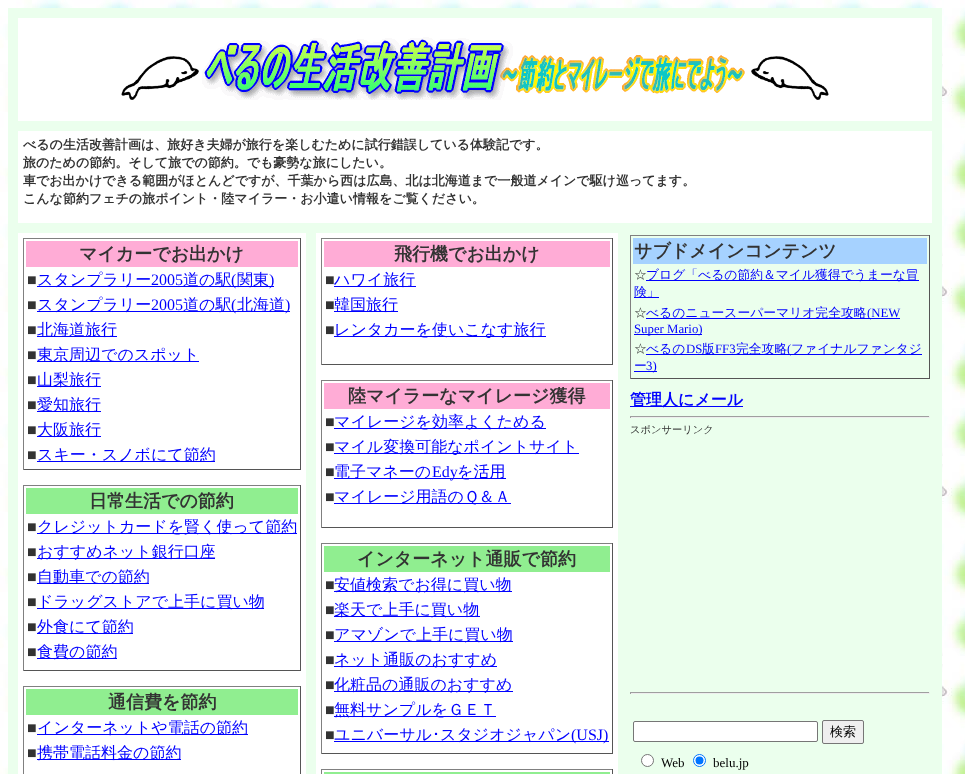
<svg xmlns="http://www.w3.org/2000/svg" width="965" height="774">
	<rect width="100%" height="100%" fill="#FFFFFF" />
	<image x="0" y="0" width="965" height="774" href="assets/img1.png" />
	<rect x="8" y="8" width="934" height="766" fill="#EBFFED" />
	<rect x="18" y="18" width="914" height="103" fill="#FFFFFF" />
	<image x="121" y="56" width="78" height="44" href="assets/img2.png" />
	<image x="202" y="37" width="543" height="63" href="assets/img3.png" />
	<image x="751" y="56" width="78" height="44" href="assets/img4.png" />
	<rect x="18" y="131" width="914" height="92" fill="#FFFFFF" />
	<g font-family="WenQuanYi Zen Hei" font-size="13" font-weight="700" fill="#333333">
		<text x="23" y="149">べるの生活改善計画は、旅好き夫婦が旅行を楽しむために試行錯誤している体験記です。</text>
		<text x="23" y="167">旅のための節約。そして旅での節約。でも豪勢な旅にしたい。</text>
		<text x="23" y="185">車でお出かけできる範囲がほとんどですが、千葉から西は広島、北は北海道まで一般道メインで駆け巡ってます。</text>
		<text x="23" y="203">こんな節約フェチの旅ポイント・陸マイラー・お小遣い情報をご覧ください。</text>
	</g>
	<rect x="18" y="233" width="288" height="541" fill="#FFFFFF" />
	<rect x="23" y="238" width="278" height="1" fill="#808080" />
	<rect x="300" y="238" width="1" height="232" fill="#555555" />
	<rect x="23" y="469" width="278" height="1" fill="#555555" />
	<rect x="23" y="238" width="1" height="232" fill="#808080" />
	<rect x="26" y="241" width="272" height="26" fill="#FFACD6" />
	<text x="79" y="260" font-family="WenQuanYi Zen Hei" font-size="18" font-weight="700" fill="#333333">マイカーでお出かけ</text>
	<text x="27" y="285" font-family="Liberation Serif" font-size="16" fill="#333333">■</text>
	<rect x="37" y="286" width="237" height="1" fill="#0000FF" />
	<text x="37" y="285" font-family="WenQuanYi Zen Hei" font-size="16" font-weight="500" fill="#0000FF">スタンプラリー</text>
	<text x="151" y="285" font-family="Liberation Serif" font-size="16" fill="#0000FF">2005</text>
	<text x="183" y="285" font-family="WenQuanYi Zen Hei" font-size="16" font-weight="500" fill="#0000FF">道の駅</text>
	<text x="231" y="285" font-family="Liberation Serif" font-size="16" fill="#0000FF">(</text>
	<text x="237" y="285" font-family="WenQuanYi Zen Hei" font-size="16" font-weight="500" fill="#0000FF">関東</text>
	<text x="269" y="285" font-family="Liberation Serif" font-size="16" fill="#0000FF">)</text>
	<text x="27" y="310" font-family="Liberation Serif" font-size="16" fill="#333333">■</text>
	<rect x="37" y="311" width="253" height="1" fill="#0000FF" />
	<text x="37" y="310" font-family="WenQuanYi Zen Hei" font-size="16" font-weight="500" fill="#0000FF">スタンプラリー</text>
	<text x="151" y="310" font-family="Liberation Serif" font-size="16" fill="#0000FF">2005</text>
	<text x="183" y="310" font-family="WenQuanYi Zen Hei" font-size="16" font-weight="500" fill="#0000FF">道の駅</text>
	<text x="231" y="310" font-family="Liberation Serif" font-size="16" fill="#0000FF">(</text>
	<text x="237" y="310" font-family="WenQuanYi Zen Hei" font-size="16" font-weight="500" fill="#0000FF">北海道</text>
	<text x="285" y="310" font-family="Liberation Serif" font-size="16" fill="#0000FF">)</text>
	<text x="27" y="335" font-family="Liberation Serif" font-size="16" fill="#333333">■</text>
	<rect x="37" y="336" width="80" height="1" fill="#0000FF" />
	<text x="37" y="335" font-family="WenQuanYi Zen Hei" font-size="16" font-weight="500" fill="#0000FF">北海道旅行</text>
	<text x="27" y="360" font-family="Liberation Serif" font-size="16" fill="#333333">■</text>
	<rect x="37" y="361" width="162" height="1" fill="#0000FF" />
	<text x="37" y="360" font-family="WenQuanYi Zen Hei" font-size="16" font-weight="500" fill="#0000FF">東京周辺でのスポット</text>
	<text x="27" y="385" font-family="Liberation Serif" font-size="16" fill="#333333">■</text>
	<rect x="37" y="386" width="64" height="1" fill="#0000FF" />
	<text x="37" y="385" font-family="WenQuanYi Zen Hei" font-size="16" font-weight="500" fill="#0000FF">山梨旅行</text>
	<text x="27" y="410" font-family="Liberation Serif" font-size="16" fill="#333333">■</text>
	<rect x="37" y="411" width="64" height="1" fill="#0000FF" />
	<text x="37" y="410" font-family="WenQuanYi Zen Hei" font-size="16" font-weight="500" fill="#0000FF">愛知旅行</text>
	<text x="27" y="435" font-family="Liberation Serif" font-size="16" fill="#333333">■</text>
	<rect x="37" y="436" width="64" height="1" fill="#0000FF" />
	<text x="37" y="435" font-family="WenQuanYi Zen Hei" font-size="16" font-weight="500" fill="#0000FF">大阪旅行</text>
	<text x="27" y="460" font-family="Liberation Serif" font-size="16" fill="#333333">■</text>
	<rect x="37" y="461" width="178" height="1" fill="#0000FF" />
	<text x="37" y="460" font-family="WenQuanYi Zen Hei" font-size="16" font-weight="500" fill="#0000FF">スキー・スノボにて節約</text>
	<rect x="23" y="485" width="278" height="1" fill="#808080" />
	<rect x="300" y="485" width="1" height="186" fill="#555555" />
	<rect x="23" y="670" width="278" height="1" fill="#555555" />
	<rect x="23" y="485" width="1" height="186" fill="#808080" />
	<rect x="26" y="488" width="272" height="26" fill="#90EE90" />
	<text x="89" y="507" font-family="WenQuanYi Zen Hei" font-size="18" font-weight="700" fill="#333333">日常生活での節約</text>
	<text x="27" y="532" font-family="Liberation Serif" font-size="16" fill="#333333">■</text>
	<rect x="37" y="533" width="260" height="1" fill="#0000FF" />
	<text x="37" y="532" font-family="WenQuanYi Zen Hei" font-size="16" font-weight="500" fill="#0000FF">クレジットカードを賢く使って節約</text>
	<text x="27" y="557" font-family="Liberation Serif" font-size="16" fill="#333333">■</text>
	<rect x="37" y="558" width="178" height="1" fill="#0000FF" />
	<text x="37" y="557" font-family="WenQuanYi Zen Hei" font-size="16" font-weight="500" fill="#0000FF">おすすめネット銀行口座</text>
	<text x="27" y="582" font-family="Liberation Serif" font-size="16" fill="#333333">■</text>
	<rect x="37" y="583" width="112" height="1" fill="#0000FF" />
	<text x="37" y="582" font-family="WenQuanYi Zen Hei" font-size="16" font-weight="500" fill="#0000FF">自動車での節約</text>
	<text x="27" y="607" font-family="Liberation Serif" font-size="16" fill="#333333">■</text>
	<rect x="37" y="608" width="227" height="1" fill="#0000FF" />
	<text x="37" y="607" font-family="WenQuanYi Zen Hei" font-size="16" font-weight="500" fill="#0000FF">ドラッグストアで上手に買い物</text>
	<text x="27" y="632" font-family="Liberation Serif" font-size="16" fill="#333333">■</text>
	<rect x="37" y="633" width="96" height="1" fill="#0000FF" />
	<text x="37" y="632" font-family="WenQuanYi Zen Hei" font-size="16" font-weight="500" fill="#0000FF">外食にて節約</text>
	<text x="27" y="657" font-family="Liberation Serif" font-size="16" fill="#333333">■</text>
	<rect x="37" y="658" width="80" height="1" fill="#0000FF" />
	<text x="37" y="657" font-family="WenQuanYi Zen Hei" font-size="16" font-weight="500" fill="#0000FF">食費の節約</text>
	<rect x="23" y="686" width="278" height="1" fill="#808080" />
	<rect x="300" y="686" width="1" height="88" fill="#555555" />
	<rect x="23" y="686" width="1" height="88" fill="#808080" />
	<rect x="26" y="689" width="272" height="26" fill="#90EE90" />
	<text x="108" y="708" font-family="WenQuanYi Zen Hei" font-size="18" font-weight="700" fill="#333333">通信費を節約</text>
	<text x="27" y="733" font-family="Liberation Serif" font-size="16" fill="#333333">■</text>
	<rect x="37" y="734" width="211" height="1" fill="#0000FF" />
	<text x="37" y="733" font-family="WenQuanYi Zen Hei" font-size="16" font-weight="500" fill="#0000FF">インターネットや電話の節約</text>
	<text x="27" y="758" font-family="Liberation Serif" font-size="16" fill="#333333">■</text>
	<rect x="37" y="759" width="144" height="1" fill="#0000FF" />
	<text x="37" y="758" font-family="WenQuanYi Zen Hei" font-size="16" font-weight="500" fill="#0000FF">携帯電話料金の節約</text>
	<rect x="316" y="233" width="302" height="541" fill="#FFFFFF" />
	<rect x="321" y="238" width="292" height="1" fill="#808080" />
	<rect x="612" y="238" width="1" height="127" fill="#555555" />
	<rect x="321" y="364" width="292" height="1" fill="#555555" />
	<rect x="321" y="238" width="1" height="127" fill="#808080" />
	<rect x="324" y="241" width="286" height="26" fill="#FFACD6" />
	<text x="394" y="260" font-family="WenQuanYi Zen Hei" font-size="18" font-weight="700" fill="#333333">飛行機でお出かけ</text>
	<text x="325" y="285" font-family="Liberation Serif" font-size="16" fill="#333333">■</text>
	<rect x="334" y="286" width="82" height="1" fill="#0000FF" />
	<text x="334" y="285" font-family="WenQuanYi Zen Hei" font-size="16" font-weight="500" fill="#0000FF">ハワイ旅行</text>
	<text x="325" y="310" font-family="Liberation Serif" font-size="16" fill="#333333">■</text>
	<rect x="334" y="311" width="64" height="1" fill="#0000FF" />
	<text x="334" y="310" font-family="WenQuanYi Zen Hei" font-size="16" font-weight="500" fill="#0000FF">韓国旅行</text>
	<text x="325" y="335" font-family="Liberation Serif" font-size="16" fill="#333333">■</text>
	<rect x="334" y="336" width="212" height="1" fill="#0000FF" />
	<text x="334" y="335" font-family="WenQuanYi Zen Hei" font-size="16" font-weight="500" fill="#0000FF">レンタカーを使いこなす旅行</text>
	<rect x="321" y="380" width="292" height="1" fill="#808080" />
	<rect x="612" y="380" width="1" height="148" fill="#555555" />
	<rect x="321" y="527" width="292" height="1" fill="#555555" />
	<rect x="321" y="380" width="1" height="148" fill="#808080" />
	<rect x="324" y="383" width="286" height="26" fill="#FFACD6" />
	<text x="348" y="402" font-family="WenQuanYi Zen Hei" font-size="18" font-weight="700" fill="#333333">陸マイラーなマイレージ獲得</text>
	<text x="325" y="427" font-family="Liberation Serif" font-size="16" fill="#333333">■</text>
	<rect x="334" y="428" width="212" height="1" fill="#0000FF" />
	<text x="334" y="427" font-family="WenQuanYi Zen Hei" font-size="16" font-weight="500" fill="#0000FF">マイレージを効率よくためる</text>
	<text x="325" y="452" font-family="Liberation Serif" font-size="16" fill="#333333">■</text>
	<rect x="334" y="453" width="245" height="1" fill="#0000FF" />
	<text x="334" y="452" font-family="WenQuanYi Zen Hei" font-size="16" font-weight="500" fill="#0000FF">マイル変換可能なポイントサイト</text>
	<text x="325" y="477" font-family="Liberation Serif" font-size="16" fill="#333333">■</text>
	<rect x="334" y="478" width="172" height="1" fill="#0000FF" />
	<text x="334" y="477" font-family="WenQuanYi Zen Hei" font-size="16" font-weight="500" fill="#0000FF">電子マネーの</text>
	<text x="432" y="477" font-family="Liberation Serif" font-size="16" fill="#0000FF">Edy</text>
	<text x="457" y="477" font-family="WenQuanYi Zen Hei" font-size="16" font-weight="500" fill="#0000FF">を活用</text>
	<text x="325" y="502" font-family="Liberation Serif" font-size="16" fill="#333333">■</text>
	<rect x="334" y="503" width="177" height="1" fill="#0000FF" />
	<text x="334" y="502" font-family="WenQuanYi Zen Hei" font-size="16" font-weight="500" fill="#0000FF">マイレージ用語のＱ＆Ａ</text>
	<rect x="321" y="543" width="292" height="1" fill="#808080" />
	<rect x="612" y="543" width="1" height="211" fill="#555555" />
	<rect x="321" y="753" width="292" height="1" fill="#555555" />
	<rect x="321" y="543" width="1" height="211" fill="#808080" />
	<rect x="324" y="546" width="286" height="26" fill="#90EE90" />
	<text x="357" y="565" font-family="WenQuanYi Zen Hei" font-size="18" font-weight="700" fill="#333333">インターネット通販で節約</text>
	<text x="325" y="590" font-family="Liberation Serif" font-size="16" fill="#333333">■</text>
	<rect x="334" y="591" width="178" height="1" fill="#0000FF" />
	<text x="334" y="590" font-family="WenQuanYi Zen Hei" font-size="16" font-weight="500" fill="#0000FF">安値検索でお得に買い物</text>
	<text x="325" y="615" font-family="Liberation Serif" font-size="16" fill="#333333">■</text>
	<rect x="334" y="616" width="146" height="1" fill="#0000FF" />
	<text x="334" y="615" font-family="WenQuanYi Zen Hei" font-size="16" font-weight="500" fill="#0000FF">楽天で上手に買い物</text>
	<text x="325" y="640" font-family="Liberation Serif" font-size="16" fill="#333333">■</text>
	<rect x="334" y="641" width="179" height="1" fill="#0000FF" />
	<text x="334" y="640" font-family="WenQuanYi Zen Hei" font-size="16" font-weight="500" fill="#0000FF">アマゾンで上手に買い物</text>
	<text x="325" y="665" font-family="Liberation Serif" font-size="16" fill="#333333">■</text>
	<rect x="334" y="666" width="163" height="1" fill="#0000FF" />
	<text x="334" y="665" font-family="WenQuanYi Zen Hei" font-size="16" font-weight="500" fill="#0000FF">ネット通販のおすすめ</text>
	<text x="325" y="690" font-family="Liberation Serif" font-size="16" fill="#333333">■</text>
	<rect x="334" y="691" width="179" height="1" fill="#0000FF" />
	<text x="334" y="690" font-family="WenQuanYi Zen Hei" font-size="16" font-weight="500" fill="#0000FF">化粧品の通販のおすすめ</text>
	<text x="325" y="715" font-family="Liberation Serif" font-size="16" fill="#333333">■</text>
	<rect x="334" y="716" width="162" height="1" fill="#0000FF" />
	<text x="334" y="715" font-family="WenQuanYi Zen Hei" font-size="16" font-weight="500" fill="#0000FF">無料サンプルをＧＥＴ</text>
	<text x="325" y="740" font-family="Liberation Serif" font-size="16" fill="#333333">■</text>
	<rect x="334" y="741" width="275" height="1" fill="#0000FF" />
	<text x="334" y="740" font-family="WenQuanYi Zen Hei" font-size="16" font-weight="500" fill="#0000FF">ユニバーサル</text>
	<text x="432" y="740" font-family="IPAGothic" font-size="16" fill="#0000FF">･</text>
	<text x="440" y="740" font-family="WenQuanYi Zen Hei" font-size="16" font-weight="500" fill="#0000FF">スタジオジャパン</text>
	<text x="571" y="740" font-family="Liberation Serif" font-size="16" fill="#0000FF">(USJ)</text>
	<rect x="321" y="769" width="292" height="1" fill="#808080" />
	<rect x="612" y="769" width="1" height="5" fill="#555555" />
	<rect x="321" y="769" width="1" height="5" fill="#808080" />
	<rect x="324" y="772" width="286" height="2" fill="#90EE90" />
	<rect x="630" y="235" width="300" height="1" fill="#808080" />
	<rect x="929" y="235" width="1" height="144" fill="#555555" />
	<rect x="630" y="378" width="300" height="1" fill="#555555" />
	<rect x="630" y="235" width="1" height="144" fill="#808080" />
	<rect x="633" y="238" width="294" height="26" fill="#A6D2FF" />
	<text x="634" y="257" font-family="WenQuanYi Zen Hei" font-size="18" font-weight="700" fill="#333333">サブドメインコンテンツ</text>
	<text x="634" y="279" font-family="WenQuanYi Zen Hei" font-size="12.8" font-weight="500" fill="#333333">☆</text>
	<rect x="646" y="280" width="273" height="1" fill="#0000FF" />
	<text x="646" y="279" font-family="WenQuanYi Zen Hei" font-size="12.8" font-weight="500" fill="#0000FF">ブログ「べるの節約＆マイル獲得でうまーな冒</text>
	<rect x="634" y="297" width="25" height="1" fill="#0000FF" />
	<text x="634" y="296" font-family="WenQuanYi Zen Hei" font-size="12.8" font-weight="500" fill="#0000FF">険」</text>
	<text x="634" y="317" font-family="WenQuanYi Zen Hei" font-size="12.8" font-weight="500" fill="#333333">☆</text>
	<rect x="646" y="318" width="254" height="1" fill="#0000FF" />
	<text x="646" y="317" font-family="WenQuanYi Zen Hei" font-size="12.8" font-weight="500" fill="#0000FF">べるのニュースーパーマリオ完全攻略</text>
	<text x="867" y="317" font-family="Liberation Serif" font-size="12.8" fill="#0000FF">(NEW</text>
	<rect x="634" y="334" width="68" height="1" fill="#0000FF" />
	<text x="634" y="333" font-family="Liberation Serif" font-size="12.8" fill="#0000FF">Super Mario)</text>
	<text x="634" y="353" font-family="WenQuanYi Zen Hei" font-size="12.8" font-weight="500" fill="#333333">☆</text>
	<rect x="646" y="354" width="276" height="1" fill="#0000FF" />
	<text x="646" y="353" font-family="WenQuanYi Zen Hei" font-size="12.8" font-weight="500" fill="#0000FF">べるの</text>
	<text x="686" y="353" font-family="Liberation Serif" font-size="12.8" fill="#0000FF">DS</text>
	<text x="702" y="353" font-family="WenQuanYi Zen Hei" font-size="12.8" font-weight="500" fill="#0000FF">版</text>
	<text x="715" y="353" font-family="Liberation Serif" font-size="12.8" fill="#0000FF">FF3</text>
	<text x="736" y="353" font-family="WenQuanYi Zen Hei" font-size="12.8" font-weight="500" fill="#0000FF">完全攻略</text>
	<text x="787" y="353" font-family="Liberation Serif" font-size="12.8" fill="#0000FF">(</text>
	<g font-family="WenQuanYi Zen Hei" font-size="12.8" font-weight="500" fill="#0000FF">
		<text x="791" y="353">ファイナルファンタジ</text>
		<text x="634" y="370">ー</text>
	</g>
	<rect x="634" y="371" width="23" height="1" fill="#0000FF" />
	<text x="646" y="370" font-family="Liberation Serif" font-size="12.8" fill="#0000FF">3)</text>
	<rect x="630" y="406" width="113" height="1" fill="#0000FF" />
	<text x="630" y="405" font-family="WenQuanYi Zen Hei" font-size="16" font-weight="700" fill="#0000FF">管理人にメール</text>
	<rect x="630" y="416" width="300" height="1" fill="#9F9F9F" />
	<rect x="929" y="416" width="1" height="2" fill="#EEEEEE" />
	<rect x="630" y="417" width="300" height="1" fill="#EEEEEE" />
	<rect x="630" y="416" width="1" height="2" fill="#9F9F9F" />
	<text x="630" y="433" font-family="WenQuanYi Zen Hei" font-size="10.25" font-weight="500" fill="#333333">スポンサーリンク</text>
	<rect x="630" y="692" width="300" height="1" fill="#9F9F9F" />
	<rect x="929" y="692" width="1" height="2" fill="#EEEEEE" />
	<rect x="630" y="693" width="300" height="1" fill="#EEEEEE" />
	<rect x="630" y="692" width="1" height="2" fill="#9F9F9F" />
	<rect x="633.5" y="721.5" width="184" height="20" rx="1.5" fill="#FFFFFF" stroke="#767676" />
	<rect x="822.5" y="720.5" width="41" height="23" rx="1.5" fill="#EFEFEF" stroke="#767676" />
	<text x="830" y="736" font-family="WenQuanYi Zen Hei" font-size="13" font-weight="500" fill="#000000">検索</text>
	<circle cx="647.5" cy="760.5" r="6" fill="#FFFFFF" stroke="#767676" />
	<text x="661" y="767" font-family="Liberation Serif" font-size="13" fill="#000000">Web</text>
	<circle cx="699.5" cy="760.5" r="6" fill="#FFFFFF" stroke="#0075FF" />
	<circle cx="699.5" cy="760.5" r="4" fill="#0075FF" />
	<text x="713" y="767" font-family="Liberation Serif" font-size="13" fill="#000000">belu.jp</text>
</svg>
